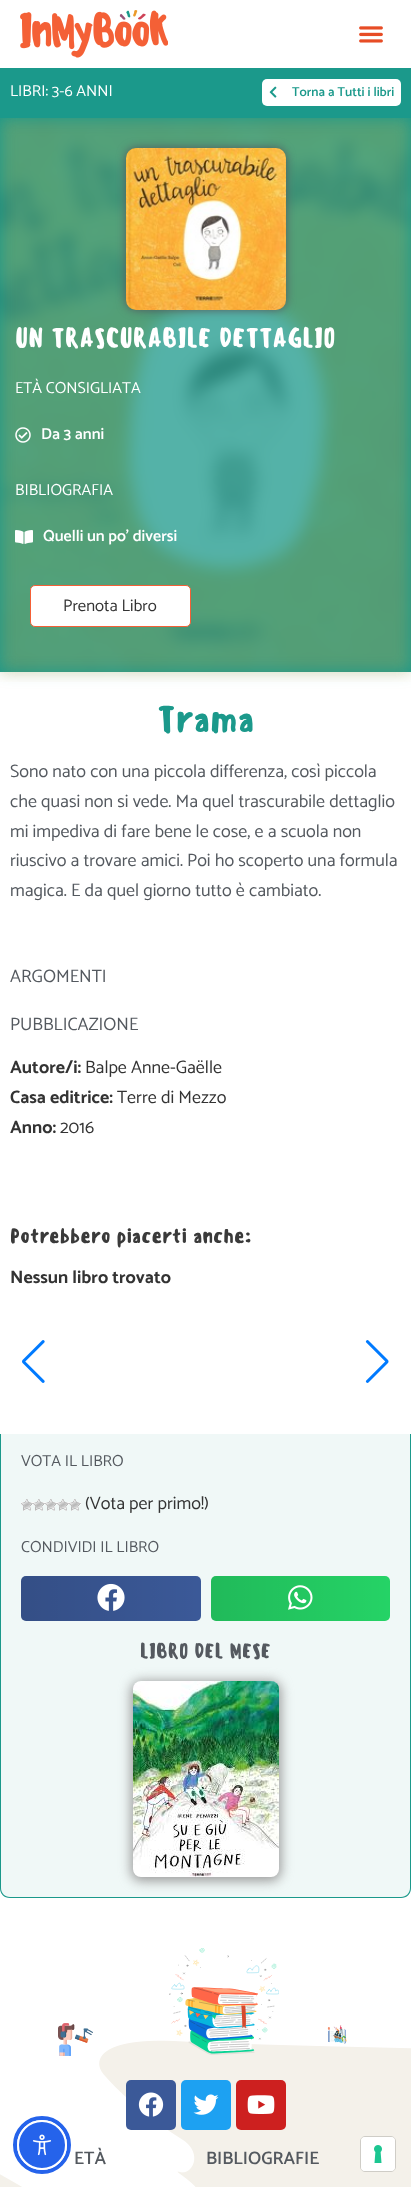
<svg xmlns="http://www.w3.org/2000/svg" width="411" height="2187">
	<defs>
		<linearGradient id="g1" gradientUnits="userSpaceOnUse" x1="21" y1="1599" x2="201" y2="1599"><stop offset="0" stop-color="#000000" stop-opacity="0.12" /><stop offset="1" stop-color="#000000" stop-opacity="0" /></linearGradient>
		<linearGradient id="g2" gradientUnits="userSpaceOnUse" x1="211" y1="1599" x2="390" y2="1599"><stop offset="0" stop-color="#000000" stop-opacity="0.12" /><stop offset="1" stop-color="#000000" stop-opacity="0" /></linearGradient>
	</defs>
	<rect width="100%" height="100%" fill="#FFFFFF" />
	<image x="20" y="10" width="148" height="48" href="assets/img1.png" />
	<image x="359" y="26" width="24" height="17" href="assets/img2.png" />
	<rect x="0" y="118" width="411" height="554" fill="#1B998B" />
	<rect x="0" y="118" width="411" height="554" fill="#1B998B" fill-opacity="0.25" filter="blur(8px)" />
	<rect x="0" y="68" width="411" height="50" fill="#1B998B" />
	<text x="10" y="96" font-family="Catamaran" font-size="16" fill="#FFFFFF">LIBRI: 3-6 ANNI</text>
	<rect x="262" y="79" width="139" height="27" rx="5" fill="#FFFFFF" />
	<image x="269" y="86" width="8" height="12" href="assets/img3.png" />
	<text x="292" y="96" font-family="Catamaran" font-size="13" font-weight="600" fill="#1B998B">Torna a Tutti i libri</text>
	<image x="0" y="118" width="411" height="564" href="assets/img4.png" />
	<rect x="126" y="148" width="160" height="162" rx="10" fill="#54595F" filter="blur(5px)" />
	<image x="126" y="148" width="160" height="162" href="assets/img5.png" />
	<text x="15" y="347" font-family="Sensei" font-size="26" font-weight="500" fill="#FFFFFF">UN TRASCURABILE DETTAGLIO</text>
	<text x="15" y="393" font-family="Catamaran" font-size="16" fill="#FFFFFF">ETÀ CONSIGLIATA</text>
	<image x="15" y="427" width="16" height="16" href="assets/img6.png" />
	<text x="41" y="439" font-family="Catamaran" font-size="16" font-weight="600" fill="#FFFFFF">Da 3 anni</text>
	<text x="15" y="495" font-family="Catamaran" font-size="16" fill="#FFFFFF">BIBLIOGRAFIA</text>
	<image x="15" y="530" width="18" height="14" href="assets/img7.png" />
	<text x="43" y="541" font-family="Catamaran" font-size="16" font-weight="600" fill="#FFFFFF">Quelli un po' diversi</text>
	<rect x="30.5" y="585.5" width="160" height="41" rx="4.5" fill="#FFFFFF" stroke="#F46036" />
	<text x="63" y="611" font-family="Catamaran" font-size="16.75" fill="#333333">Prenota Libro</text>
	<text x="157" y="732" font-family="Sensei" font-size="36" font-weight="500" fill="#1B998B">Trama</text>
	<g font-family="Catamaran" font-size="18" fill="#54595F">
		<text x="10" y="777">Sono nato con una piccola differenza, così piccola</text>
		<text x="10" y="807">che quasi non si vede. Ma quel trascurabile dettaglio</text>
		<text x="10" y="837">mi impediva di fare bene le cose, e a scuola non</text>
		<text x="10" y="866">riuscivo a trovare amici. Poi ho scoperto una formula</text>
		<text x="10" y="896">magica. E da quel giorno tutto è cambiato.</text>
		<text x="10" y="982">ARGOMENTI</text>
		<text x="10" y="1030">PUBBLICAZIONE</text>
	</g>
	<text x="10" y="1073" font-family="Catamaran" font-size="18" font-weight="700" fill="#333333">Autore/i:</text>
	<text x="85" y="1073" font-family="Catamaran" font-size="18" fill="#333333">Balpe Anne-Gaëlle</text>
	<text x="10" y="1103" font-family="Catamaran" font-size="18" font-weight="700" fill="#333333">Casa editrice:</text>
	<text x="117" y="1103" font-family="Catamaran" font-size="18" fill="#333333">Terre di Mezzo</text>
	<text x="10" y="1133" font-family="Catamaran" font-size="18" font-weight="700" fill="#333333">Anno:</text>
	<text x="60" y="1133" font-family="Catamaran" font-size="18" fill="#333333">2016</text>
	<text x="10" y="1243" font-family="Sensei" font-size="20" font-weight="500" fill="#3A3A3A">Potrebbero piacerti anche:</text>
	<text x="10" y="1283" font-family="Catamaran" font-size="18" font-weight="700" fill="#333333">Nessun libro trovato</text>
	<image x="22" y="1340" width="23" height="43" href="assets/img8.png" />
	<image x="365" y="1340" width="24" height="43" href="assets/img9.png" />
	<path d="M1 1434H410V1888C410 1893 406 1897 401 1897H10C5 1897 1 1893 1 1888Z" fill="#F0F8F7" />
	<path d="M0 1434H411V1888C411 1894 407 1898 401 1898H10C4 1898 0 1894 0 1888ZM1 1434H410V1888C410 1893 406 1897 401 1897H10C5 1897 1 1893 1 1888Z" fill="#1B998B" fill-rule="evenodd" />
	<text x="21" y="1466" font-family="Catamaran" font-size="16" fill="#54595F">VOTA IL LIBRO</text>
	<image x="21" y="1499" width="12" height="12" href="assets/img10.png" />
	<image x="33" y="1499" width="12" height="12" href="assets/img10.png" />
	<image x="45" y="1499" width="12" height="12" href="assets/img10.png" />
	<image x="57" y="1499" width="12" height="12" href="assets/img10.png" />
	<image x="69" y="1499" width="12" height="12" href="assets/img10.png" />
	<text x="85" y="1509" font-family="Catamaran" font-size="18" fill="#333333">(Vota per primo!)</text>
	<text x="21" y="1552" font-family="Catamaran" font-size="16" fill="#54595F">CONDIVIDI IL LIBRO</text>
	<rect x="21" y="1576" width="180" height="45" rx="5" fill="#3B5998" />
	<rect x="21" y="1576" width="180" height="45" rx="5" fill="url(#g1)" />
	<image x="97" y="1583" width="28" height="28" href="assets/img11.png" />
	<rect x="211" y="1576" width="179" height="45" rx="5" fill="#25D366" />
	<rect x="211" y="1576" width="179" height="45" rx="5" fill="url(#g2)" />
	<image x="288" y="1585" width="25" height="25" href="assets/img12.png" />
	<text x="140" y="1658" font-family="Sensei" font-size="20" font-weight="500" fill="#54595F">LIBRO DEL MESE</text>
	<rect x="131" y="1681" width="150" height="200" rx="10" fill="#999999" filter="blur(6px)" />
	<image x="133" y="1681" width="146" height="196" href="assets/img13.png" />
	<rect x="0" y="2040" width="411" height="147" fill="#F4F1EA" />
	<image x="0" y="2040" width="411" height="147" href="assets/img17.png" />
	<image x="58" y="2023" width="35" height="33" href="assets/img14.png" />
	<image x="169" y="1948" width="110" height="107" href="assets/img15.png" />
	<image x="327" y="2025" width="20" height="19" href="assets/img16.png" />
	<rect x="126" y="2080" width="50" height="50" rx="5" fill="#3B5998" />
	<image x="138" y="2092" width="26" height="25" href="assets/img18.png" />
	<rect x="181" y="2080" width="50" height="50" rx="5" fill="#1DA1F2" />
	<image x="193" y="2094" width="26" height="21" href="assets/img19.png" />
	<rect x="236" y="2080" width="50" height="50" rx="5" fill="#CD201F" />
	<image x="247" y="2095" width="28" height="19" href="assets/img20.png" />
	<g font-family="Catamaran" font-size="18" font-weight="600" fill="#54595F">
		<text x="74" y="2164">ETÀ</text>
		<text x="206" y="2164">BIBLIOGRAFIE</text>
	</g>
	<circle cx="42" cy="2145" r="27" fill="none" stroke="#2563EB" stroke-width="4" />
	<circle cx="42" cy="2145" r="24" fill="#2563EB" stroke="#FFFFFF" stroke-width="2" />
	<image x="32" y="2134" width="20" height="22" href="assets/img21.png" />
	<rect x="360.5" y="2136.5" width="35" height="35" rx="4.5" fill="none" stroke="#CFCDC7" />
	<rect x="361" y="2137" width="34" height="34" rx="4" fill="#FFFFFF" />
	<image x="374" y="2145" width="8" height="18" href="assets/img22.png" />
</svg>
